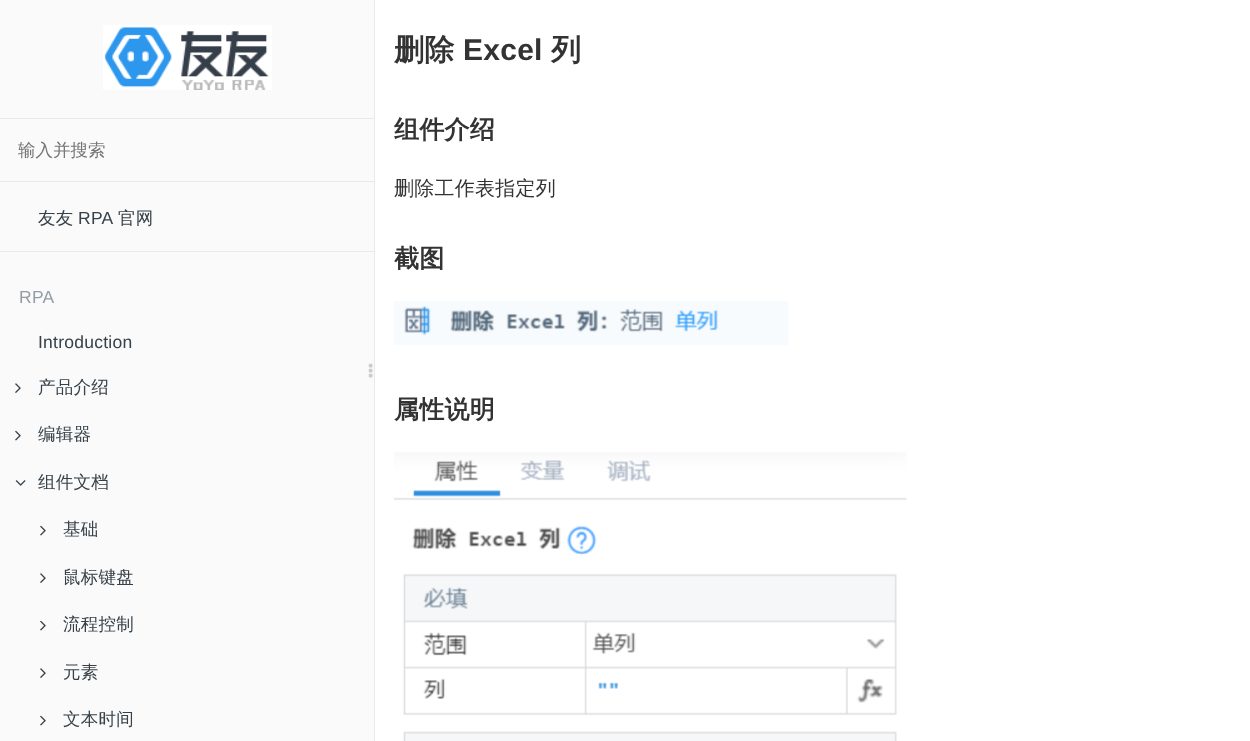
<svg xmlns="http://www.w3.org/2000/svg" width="1250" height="741">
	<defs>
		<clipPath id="clip1"><rect x="18" y="140" width="338" height="23" /></clipPath>
	</defs>
	<rect width="100%" height="100%" fill="#FFFFFF" />
	<rect x="0" y="0" width="374" height="741" fill="#FAFAFA" />
	<rect x="374" y="0" width="1" height="741" fill="#E9E9E9" />
	<image x="103" y="25" width="169" height="65" href="assets/img1.png" />
	<rect x="0" y="118" width="374" height="1" fill="#E9E9E9" />
	<rect x="0" y="181" width="374" height="1" fill="#E9E9E9" />
	<g clip-path="url(#clip1)">
		<text x="18" y="156" font-family="WenQuanYi Zen Hei" font-size="17.5" font-weight="500" fill="#757575">输入并搜索</text>
	</g>
	<text x="38" y="224" font-family="WenQuanYi Zen Hei" font-size="17.5" font-weight="500" letter-spacing="0.25" fill="#364149">友友</text>
	<text x="78" y="224" font-family="Liberation Sans" font-size="17.5" letter-spacing="0.25" fill="#364149">RPA</text>
	<text x="118" y="224" font-family="WenQuanYi Zen Hei" font-size="17.5" font-weight="500" letter-spacing="0.25" fill="#364149">官网</text>
	<rect x="0" y="251" width="374" height="1" fill="#E9E9E9" />
	<text x="19" y="303" font-family="Liberation Sans" font-size="17.5" letter-spacing="0.25" fill="#939DA3">RPA</text>
	<text x="38" y="348" font-family="Liberation Sans" font-size="17.5" letter-spacing="0.25" fill="#364149">Introduction</text>
	<image x="15" y="383" width="6" height="10" href="assets/img2.png" />
	<text x="38" y="393" font-family="WenQuanYi Zen Hei" font-size="17.5" font-weight="500" letter-spacing="0.25" fill="#364149">产品介绍</text>
	<image x="15" y="430" width="6" height="11" href="assets/img3.png" />
	<text x="38" y="440" font-family="WenQuanYi Zen Hei" font-size="17.5" font-weight="500" letter-spacing="0.25" fill="#364149">编辑器</text>
	<image x="15" y="480" width="11" height="6" href="assets/img4.png" />
	<text x="38" y="488" font-family="WenQuanYi Zen Hei" font-size="17.5" font-weight="500" letter-spacing="0.25" fill="#364149">组件文档</text>
	<image x="40" y="525" width="6" height="11" href="assets/img3.png" />
	<text x="63" y="535" font-family="WenQuanYi Zen Hei" font-size="17.5" font-weight="500" letter-spacing="0.25" fill="#364149">基础</text>
	<image x="40" y="573" width="6" height="10" href="assets/img2.png" />
	<text x="63" y="583" font-family="WenQuanYi Zen Hei" font-size="17.5" font-weight="500" letter-spacing="0.25" fill="#364149">鼠标键盘</text>
	<image x="40" y="620" width="6" height="11" href="assets/img3.png" />
	<text x="63" y="630" font-family="WenQuanYi Zen Hei" font-size="17.5" font-weight="500" letter-spacing="0.25" fill="#364149">流程控制</text>
	<image x="40" y="668" width="6" height="10" href="assets/img2.png" />
	<text x="63" y="678" font-family="WenQuanYi Zen Hei" font-size="17.5" font-weight="500" letter-spacing="0.25" fill="#364149">元素</text>
	<image x="40" y="715" width="6" height="11" href="assets/img3.png" />
	<text x="63" y="725" font-family="WenQuanYi Zen Hei" font-size="17.5" font-weight="500" letter-spacing="0.25" fill="#364149">文本时间</text>
	<image x="368" y="363" width="5" height="15" href="assets/img5.png" />
	<text x="394" y="60" font-family="WenQuanYi Zen Hei" font-size="30" font-weight="700" letter-spacing="0.25" fill="#333333">删除</text>
	<text x="463" y="60" font-family="Liberation Sans" font-size="30" font-weight="700" letter-spacing="0.25" fill="#333333">Excel</text>
	<text x="551" y="60" font-family="WenQuanYi Zen Hei" font-size="30" font-weight="700" letter-spacing="0.25" fill="#333333">列</text>
	<text x="394" y="138" font-family="WenQuanYi Zen Hei" font-size="25" font-weight="700" letter-spacing="0.25" fill="#333333">组件介绍</text>
	<text x="394" y="195" font-family="WenQuanYi Zen Hei" font-size="20" font-weight="500" letter-spacing="0.25" fill="#333333">删除工作表指定列</text>
	<text x="394" y="267" font-family="WenQuanYi Zen Hei" font-size="25" font-weight="700" letter-spacing="0.25" fill="#333333">截图</text>
	<image x="394" y="301" width="395" height="44" href="assets/img6.png" />
	<text x="394" y="418" font-family="WenQuanYi Zen Hei" font-size="25" font-weight="700" letter-spacing="0.25" fill="#333333">属性说明</text>
	<image x="394" y="452" width="513" height="289" href="assets/img7.png" />
</svg>
